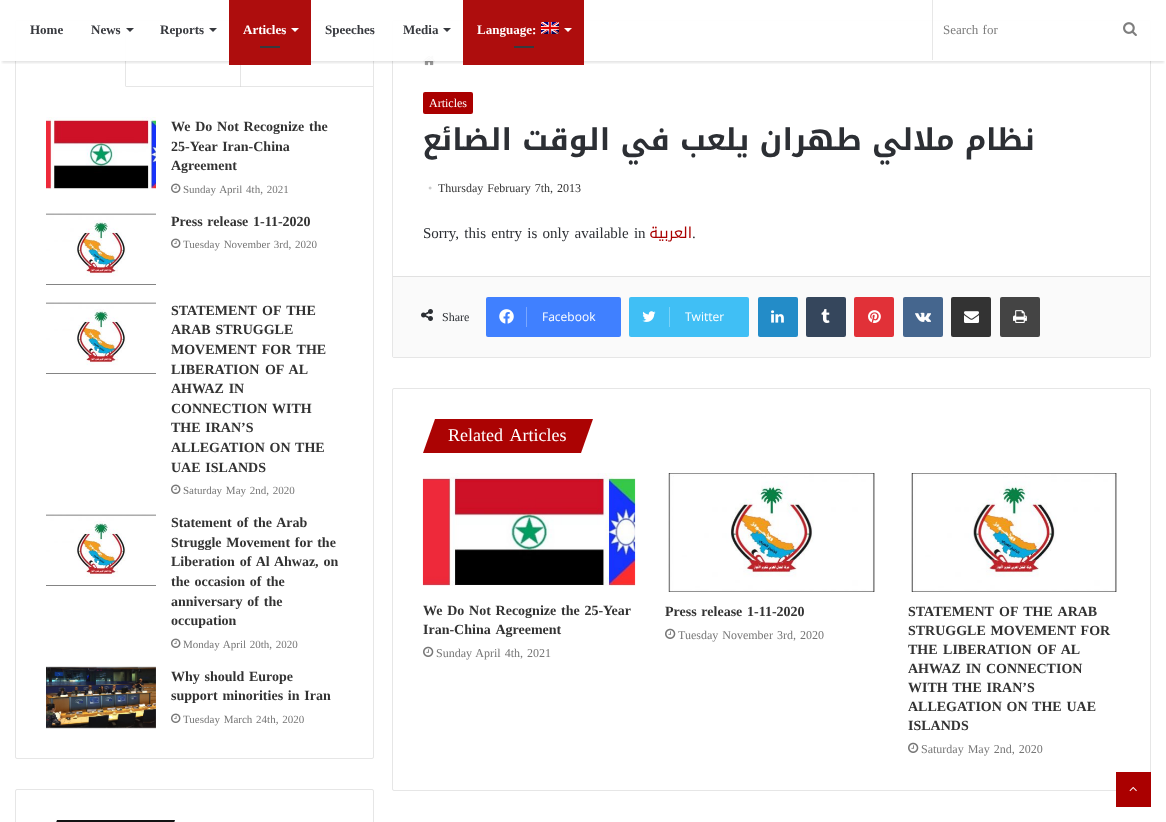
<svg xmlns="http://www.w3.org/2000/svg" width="1166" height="822">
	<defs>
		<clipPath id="clip1"><rect x="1" y="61" width="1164" height="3" /></clipPath>
	</defs>
	<rect width="100%" height="100%" fill="#FFFFFF" />
	<rect x="15.5" y="20.5" width="358" height="738" rx="1.5" fill="none" stroke="#E6E6E6" />
	<rect x="16" y="21" width="1" height="1" fill="#FFFFFF" />
	<path d="M126 21V87L125 86V21Z" fill="#E6E6E6" />
	<rect x="126" y="86" width="247" height="1" fill="#E6E6E6" />
	<path d="M241 21V87L240 86V21Z" fill="#000000" fill-opacity="0.1" />
	<rect x="392.5" y="20.5" width="758" height="337" rx="1.5" fill="none" stroke="#E6E6E6" />
	<image x="423" y="55" width="12" height="11" href="assets/img7.png" />
	<g clip-path="url(#clip1)">
		<rect x="2" y="6" width="1162" height="57" fill="#000000" fill-opacity="0.1" filter="blur(1px)" />
	</g>
	<rect x="15" y="20" width="1136" height="41" fill="#FFFFFF" fill-opacity="0.95" />
	<g font-family="Liberation Serif" font-size="13" font-weight="700" fill="#37393E">
		<text x="30" y="34">Home</text>
		<text x="91" y="34">News</text>
	</g>
	<path d="M126 28H134L130 32Z" fill="#37393E" />
	<text x="160" y="34" font-family="Liberation Serif" font-size="13" font-weight="700" fill="#37393E">Reports</text>
	<path d="M209 28H217L213 32Z" fill="#37393E" />
	<rect x="229" y="60" width="82" height="5" fill="#AA0000" fill-opacity="0.95" />
	<rect x="229" y="0" width="82" height="60" fill="#AA0000" fill-opacity="0.95" />
	<text x="243" y="34" font-family="Liberation Serif" font-size="13" font-weight="700" fill="#FFFFFF">Articles</text>
	<path d="M291 28H299L295 32Z" fill="#FFFFFF" />
	<rect x="260" y="46" width="20" height="2" fill="#37393E" />
	<g font-family="Liberation Serif" font-size="13" font-weight="700" fill="#37393E">
		<text x="325" y="34">Speeches</text>
		<text x="403" y="34">Media</text>
	</g>
	<path d="M443 28H451L447 32Z" fill="#37393E" />
	<rect x="463" y="60" width="121" height="5" fill="#AA0000" fill-opacity="0.95" />
	<rect x="463" y="0" width="121" height="60" fill="#AA0000" fill-opacity="0.95" />
	<text x="477" y="34" font-family="Liberation Serif" font-size="13" font-weight="700" fill="#FFFFFF">Language:</text>
	<image x="541" y="22" width="18" height="12" href="assets/img1.png" />
	<path d="M564 28H572L568 32Z" fill="#FFFFFF" />
	<rect x="514" y="46" width="20" height="2" fill="#37393E" />
	<rect x="932" y="0" width="1" height="60" fill="#E7E7E7" />
	<text x="943" y="34" word-spacing="1" font-family="Liberation Serif" font-size="13" fill="#7C7C7C">Search for</text>
	<image x="1123" y="22" width="14" height="14" href="assets/img2.png" />
	<image x="46" y="117" width="110" height="72" href="assets/img3.png" />
	<g font-family="Liberation Serif" font-size="14" font-weight="700" fill="#333333">
		<text x="171" y="131" word-spacing="1.25">We Do Not Recognize the</text>
		<text x="171" y="151" word-spacing="1.25">25-Year Iran-China</text>
		<text x="171" y="170">Agreement</text>
	</g>
	<image x="171" y="183" width="10" height="10" href="assets/img4.png" />
	<text x="183" y="193" word-spacing="1" font-family="Liberation Serif" font-size="11" fill="#767676">Sunday April 4th, 2021</text>
	<image x="46" y="213" width="110" height="72" href="assets/img5.png" />
	<text x="171" y="226" word-spacing="1.25" font-family="Liberation Serif" font-size="14" font-weight="700" fill="#333333">Press release 1-11-2020</text>
	<image x="171" y="238" width="10" height="10" href="assets/img4.png" />
	<text x="183" y="248" word-spacing="1" font-family="Liberation Serif" font-size="11" fill="#767676">Tuesday November 3rd, 2020</text>
	<image x="46" y="302" width="110" height="72" href="assets/img5.png" />
	<g font-family="Liberation Serif" font-size="14" font-weight="700" fill="#333333">
		<text x="171" y="315" word-spacing="2">STATEMENT OF THE</text>
		<text x="171" y="334" word-spacing="1.25">ARAB STRUGGLE</text>
		<text x="171" y="354" word-spacing="2">MOVEMENT FOR THE</text>
		<text x="171" y="374" word-spacing="2">LIBERATION OF AL</text>
		<text x="171" y="393" word-spacing="1.25">AHWAZ IN</text>
		<text x="171" y="413" word-spacing="1.25">CONNECTION WITH</text>
		<text x="171" y="432" word-spacing="1.25">THE IRAN’S</text>
		<text x="171" y="452" word-spacing="1.25">ALLEGATION ON THE</text>
		<text x="171" y="472" word-spacing="1.25">UAE ISLANDS</text>
	</g>
	<image x="171" y="484" width="10" height="10" href="assets/img4.png" />
	<text x="183" y="494" word-spacing="1" font-family="Liberation Serif" font-size="11" fill="#767676">Saturday May 2nd, 2020</text>
	<image x="46" y="514" width="110" height="72" href="assets/img5.png" />
	<g font-family="Liberation Serif" font-size="14" font-weight="700" fill="#333333">
		<text x="171" y="527" word-spacing="1.5">Statement of the Arab</text>
		<text x="171" y="547" word-spacing="1.25">Struggle Movement for the</text>
		<text x="171" y="566" word-spacing="1.5">Liberation of Al Ahwaz, on</text>
		<text x="171" y="586" word-spacing="1.25">the occasion of the</text>
		<text x="171" y="606" word-spacing="1.25">anniversary of the</text>
		<text x="171" y="625">occupation</text>
	</g>
	<image x="171" y="638" width="10" height="10" href="assets/img4.png" />
	<text x="183" y="648" word-spacing="1" font-family="Liberation Serif" font-size="11" fill="#767676">Monday April 20th, 2020</text>
	<image x="46" y="666" width="110" height="63" href="assets/img6.png" />
	<g font-family="Liberation Serif" font-size="14" font-weight="700" fill="#333333">
		<text x="171" y="681" word-spacing="1.25">Why should Europe</text>
		<text x="171" y="700" word-spacing="1.25">support minorities in Iran</text>
	</g>
	<image x="171" y="713" width="10" height="10" href="assets/img4.png" />
	<text x="183" y="723" word-spacing="1" font-family="Liberation Serif" font-size="11" fill="#767676">Tuesday March 24th, 2020</text>
	<rect x="15.5" y="789.5" width="358" height="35" rx="1.5" fill="none" stroke="#E6E6E6" />
	<path d="M57 820H175L166 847H47Z" fill="#131313" />
	<rect x="423" y="92" width="50" height="22" rx="2" fill="#AA0000" />
	<text x="429" y="107" font-family="Liberation Serif" font-size="12" fill="#FFFFFF">Articles</text>
	<text x="1035" y="150" font-family="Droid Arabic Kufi" font-size="30" font-weight="700" direction="rtl" fill="#2C2F34">نظام ملالي طهران يلعب في الوقت الضائع</text>
	<text x="428" y="192" font-family="Liberation Serif" font-size="12" fill="#CCCCCC">•</text>
	<text x="438" y="192" word-spacing="1" font-family="Liberation Serif" font-size="12" fill="#333333">Thursday February 7th, 2013</text>
	<text x="423" y="238" word-spacing="1.5" font-family="Liberation Serif" font-size="15" fill="#2C2F34">Sorry, this entry is only available in</text>
	<text x="692" y="238" font-family="Droid Arabic Kufi" font-size="15" direction="rtl" fill="#AA0000">العربية</text>
	<text x="692" y="238" font-family="Liberation Serif" font-size="15" fill="#2C2F34">.</text>
	<rect x="393" y="277" width="757" height="80" fill="#FAFAFA" />
	<rect x="393" y="276" width="757" height="1" fill="#E1E1E1" />
	<image x="421" y="309" width="12" height="12" href="assets/img8.png" />
	<text x="442" y="321" font-family="Liberation Serif" font-size="12" fill="#2C2F34">Share</text>
	<rect x="486" y="297" width="135" height="40" rx="2" fill="#4080FF" />
	<image x="499" y="309" width="15" height="15" href="assets/img9.png" />
	<rect x="526" y="307" width="1" height="20" fill="#79A6FF" />
	<text x="542" y="321" font-family="Open Sans" font-size="12" fill="#FFFFFF">Facebook</text>
	<rect x="629" y="297" width="120" height="40" rx="2" fill="#40BFF5" />
	<image x="642" y="311" width="14" height="11" href="assets/img10.png" />
	<rect x="669" y="307" width="1" height="20" fill="#79D2F8" />
	<text x="685" y="321" font-family="Open Sans" font-size="12" fill="#FFFFFF">Twitter</text>
	<rect x="758" y="297" width="40" height="40" rx="2" fill="#238CC8" />
	<image x="771" y="310" width="13" height="13" href="assets/img11.png" />
	<rect x="806" y="297" width="40" height="40" rx="2" fill="#35465C" />
	<image x="821" y="309" width="9" height="14" href="assets/img12.png" />
	<rect x="854" y="297" width="40" height="40" rx="2" fill="#E13138" />
	<image x="868" y="310" width="13" height="13" href="assets/img13.png" />
	<rect x="903" y="297" width="40" height="40" rx="2" fill="#45668E" />
	<image x="915" y="312" width="16" height="10" href="assets/img14.png" />
	<rect x="951" y="297" width="40" height="40" rx="2" fill="#333333" />
	<image x="964" y="311" width="15" height="12" href="assets/img15.png" />
	<rect x="1000" y="297" width="40" height="40" rx="2" fill="#444444" />
	<image x="1013" y="310" width="14" height="13" href="assets/img16.png" />
	<rect x="392.5" y="388.5" width="758" height="402" rx="1.5" fill="none" stroke="#E6E6E6" />
	<path d="M435 419H593L581 453H423Z" fill="#AB0303" />
	<text x="448" y="441" word-spacing="3" font-family="Liberation Serif" font-size="18" fill="#FFFFFF">Related Articles</text>
	<image x="422" y="473" width="214" height="113" href="assets/img17.png" />
	<g font-family="Liberation Serif" font-size="14" font-weight="700" fill="#333333">
		<text x="423" y="615" word-spacing="1.25">We Do Not Recognize the 25-Year</text>
		<text x="423" y="634" word-spacing="2">Iran-China Agreement</text>
	</g>
	<image x="423" y="646" width="11" height="11" href="assets/img18.png" />
	<text x="436" y="657" word-spacing="1" font-family="Liberation Serif" font-size="12" fill="#767676">Sunday April 4th, 2021</text>
	<image x="668" y="473" width="207" height="119" href="assets/img19.png" />
	<text x="665" y="616" word-spacing="1.25" font-family="Liberation Serif" font-size="14" font-weight="700" fill="#333333">Press release 1-11-2020</text>
	<image x="665" y="628" width="11" height="11" href="assets/img18.png" />
	<text x="678" y="639" word-spacing="1" font-family="Liberation Serif" font-size="12" fill="#767676">Tuesday November 3rd, 2020</text>
	<image x="911" y="473" width="206" height="119" href="assets/img20.png" />
	<g font-family="Liberation Serif" font-size="14" font-weight="700" fill="#333333">
		<text x="908" y="616" word-spacing="2">STATEMENT OF THE ARAB</text>
		<text x="908" y="635" word-spacing="1.25">STRUGGLE MOVEMENT FOR</text>
		<text x="908" y="654" word-spacing="2">THE LIBERATION OF AL</text>
		<text x="908" y="673" word-spacing="1.25">AHWAZ IN CONNECTION</text>
		<text x="908" y="692" word-spacing="1.25">WITH THE IRAN’S</text>
		<text x="908" y="711" word-spacing="1.25">ALLEGATION ON THE UAE</text>
		<text x="908" y="730">ISLANDS</text>
	</g>
	<image x="908" y="742" width="11" height="11" href="assets/img18.png" />
	<text x="921" y="753" word-spacing="1" font-family="Liberation Serif" font-size="12" fill="#767676">Saturday May 2nd, 2020</text>
	<rect x="1116" y="772" width="35" height="35" fill="#AA0000" />
	<image x="1129" y="786" width="8" height="6" href="assets/img21.png" />
</svg>
